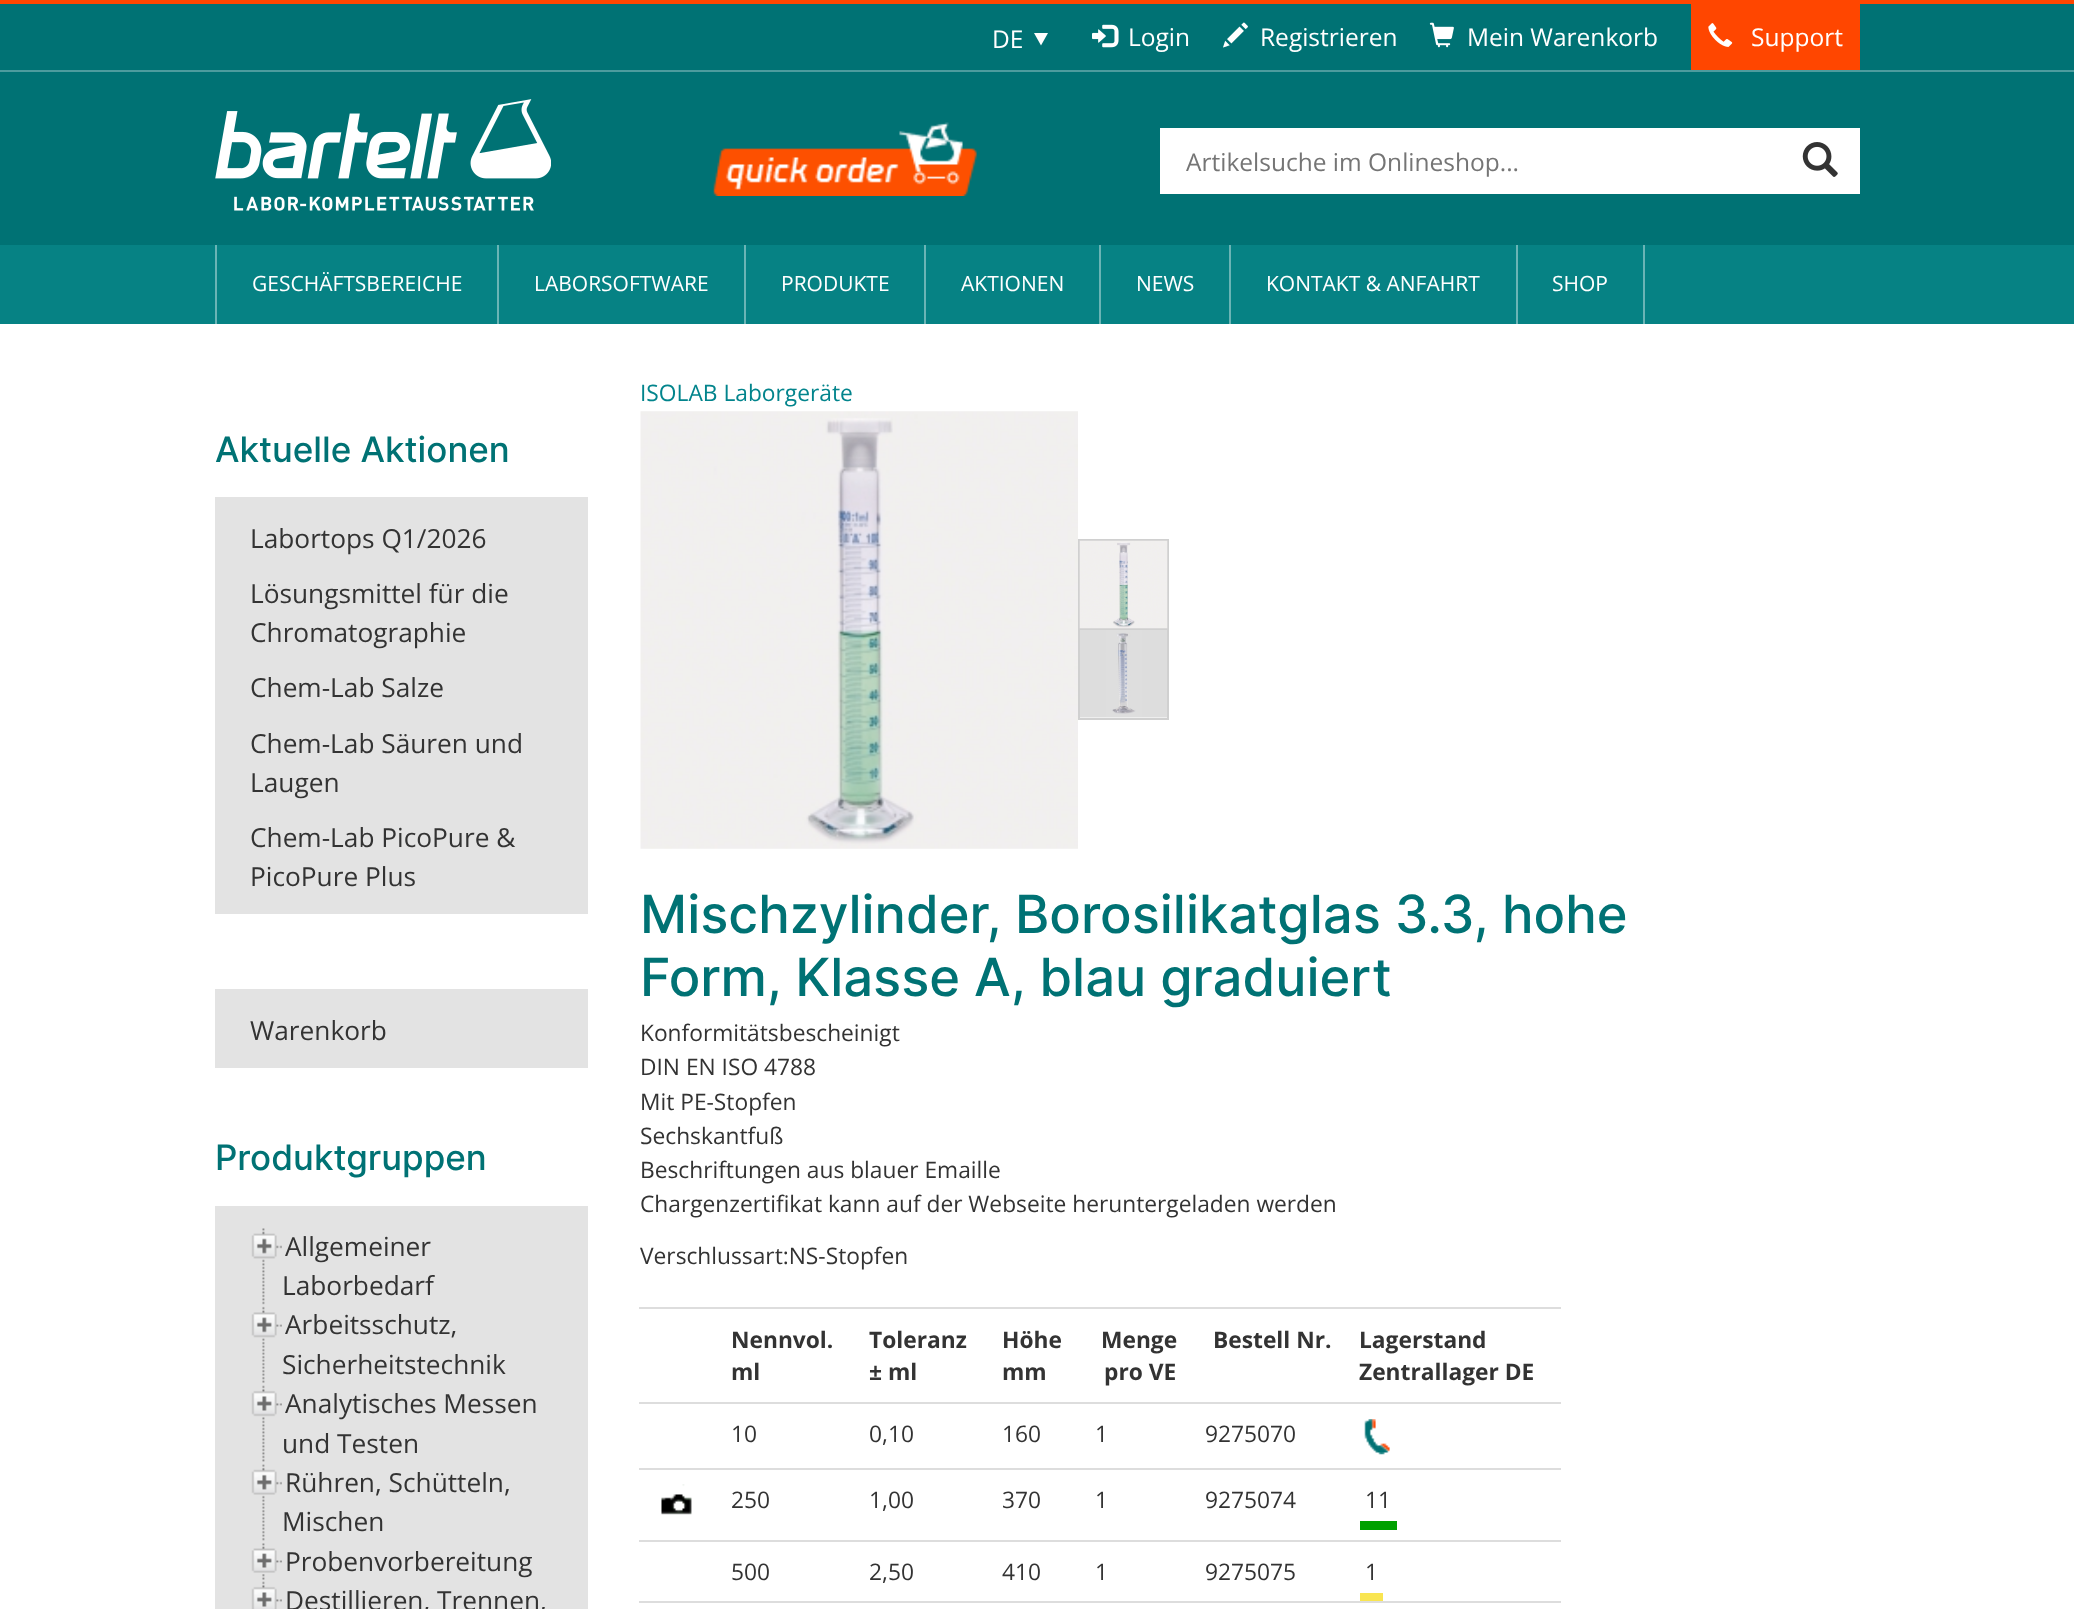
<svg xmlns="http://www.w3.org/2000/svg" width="2074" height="1609">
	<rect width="100%" height="100%" fill="#FFFFFF" />
	<rect x="0" y="0" width="2074" height="4" fill="#FF4600" />
	<rect x="0" y="4" width="2074" height="241" fill="#007274" />
	<text x="992" y="48" font-family="Open Sans" font-size="24.5" fill="#FFFFFF">DE</text>
	<path d="M1034 33H1048L1041 45.5Z" fill="#FFFFFF" />
	<image x="1092" y="24" width="27" height="24" href="assets/img1.png" />
	<text x="1128" y="46" font-family="Open Sans" font-size="24.5" fill="#FFFFFF">Login</text>
	<image x="1223" y="22" width="25" height="26" href="assets/img2.png" />
	<text x="1260" y="46" font-family="Open Sans" font-size="24.5" fill="#FFFFFF">Registrieren</text>
	<image x="1429" y="22" width="25" height="26" href="assets/img3.png" />
	<text x="1467" y="46" font-family="Open Sans" font-size="24.5" fill="#FFFFFF">Mein Warenkorb</text>
	<rect x="1691" y="4" width="169" height="66" fill="#FF4600" />
	<image x="1708" y="23" width="25" height="24" href="assets/img4.png" />
	<text x="1751" y="46" font-family="Open Sans" font-size="24.5" fill="#FFFFFF">Support</text>
	<image x="215" y="99" width="336" height="112" href="assets/img5.png" />
	<image x="713" y="122" width="264" height="74" href="assets/img6.png" />
	<rect x="1160" y="128" width="700" height="66" fill="#FFFFFF" />
	<text x="1186" y="171" font-family="Open Sans" font-size="24.5" fill="#757575">Artikelsuche im Onlineshop...</text>
	<image x="1802" y="142" width="36" height="35" href="assets/img7.png" />
	<rect x="0" y="70" width="2074" height="2" fill="#4D9C9E" />
	<rect x="0" y="245" width="2074" height="79" fill="#068284" />
	<rect x="497" y="245" width="2" height="79" fill="#6AB4B5" />
	<rect x="215" y="245" width="2" height="79" fill="#6AB4B5" />
	<text x="252" y="291" font-family="Open Sans" font-size="21" fill="#FFFFFF">GESCHÄFTSBEREICHE</text>
	<rect x="744" y="245" width="2" height="79" fill="#6AB4B5" />
	<text x="534" y="291" font-family="Open Sans" font-size="21" fill="#FFFFFF">LABORSOFTWARE</text>
	<rect x="924" y="245" width="2" height="79" fill="#6AB4B5" />
	<text x="781" y="291" font-family="Open Sans" font-size="21" fill="#FFFFFF">PRODUKTE</text>
	<rect x="1099" y="245" width="2" height="79" fill="#6AB4B5" />
	<text x="961" y="291" font-family="Open Sans" font-size="21" fill="#FFFFFF">AKTIONEN</text>
	<rect x="1229" y="245" width="2" height="79" fill="#6AB4B5" />
	<text x="1136" y="291" font-family="Open Sans" font-size="21" fill="#FFFFFF">NEWS</text>
	<rect x="1516" y="245" width="2" height="79" fill="#6AB4B5" />
	<text x="1266" y="291" font-family="Open Sans" font-size="21" fill="#FFFFFF">KONTAKT &amp; ANFAHRT</text>
	<rect x="1643" y="245" width="2" height="79" fill="#6AB4B5" />
	<text x="1552" y="291" font-family="Open Sans" font-size="21" fill="#FFFFFF">SHOP</text>
	<text x="215" y="462" font-family="Inter" font-size="35" font-weight="500" fill="#007274">Aktuelle Aktionen</text>
	<rect x="215" y="497" width="373" height="417" fill="#E3E3E3" />
	<g font-family="Open Sans" font-size="26.25" fill="#333333">
		<text x="250" y="548">Labortops Q1/2026</text>
		<text x="250" y="603">Lösungsmittel für die</text>
		<text x="250" y="642">Chromatographie</text>
		<text x="250" y="697">Chem-Lab Salze</text>
		<text x="250" y="753">Chem-Lab Säuren und</text>
		<text x="250" y="792">Laugen</text>
		<text x="250" y="847">Chem-Lab PicoPure &amp;</text>
		<text x="250" y="886">PicoPure Plus</text>
	</g>
	<rect x="215" y="989" width="373" height="79" fill="#E3E3E3" />
	<text x="250" y="1040" font-family="Open Sans" font-size="26.25" fill="#333333">Warenkorb</text>
	<text x="215" y="1170" font-family="Inter" font-size="35" font-weight="500" fill="#007274">Produktgruppen</text>
	<rect x="215" y="1206" width="373" height="403" fill="#E3E3E3" />
	<image x="251" y="1228" width="31" height="77" href="assets/img8.png" />
	<g font-family="Open Sans" font-size="26.25" fill="#333333">
		<text x="285" y="1256">Allgemeiner</text>
		<text x="282" y="1295">Laborbedarf</text>
	</g>
	<image x="251" y="1306" width="31" height="77" href="assets/img9.png" />
	<g font-family="Open Sans" font-size="26.25" fill="#333333">
		<text x="285" y="1334">Arbeitsschutz,</text>
		<text x="282" y="1374">Sicherheitstechnik</text>
	</g>
	<image x="251" y="1385" width="31" height="77" href="assets/img10.png" />
	<g font-family="Open Sans" font-size="26.25" fill="#333333">
		<text x="285" y="1413">Analytisches Messen</text>
		<text x="282" y="1453">und Testen</text>
	</g>
	<image x="251" y="1464" width="31" height="77" href="assets/img11.png" />
	<g font-family="Open Sans" font-size="26.25" fill="#333333">
		<text x="285" y="1492">Rühren, Schütteln,</text>
		<text x="282" y="1531">Mischen</text>
	</g>
	<image x="251" y="1543" width="31" height="37" href="assets/img12.png" />
	<text x="285" y="1571" font-family="Open Sans" font-size="26.25" fill="#333333">Probenvorbereitung</text>
	<image x="251" y="1581" width="31" height="28" href="assets/img13.png" />
	<text x="285" y="1610" font-family="Open Sans" font-size="26.25" fill="#333333">Destillieren, Trennen,</text>
	<text x="640" y="401" font-family="Open Sans" font-size="22.75" fill="#02848C">ISOLAB Laborgeräte</text>
	<image x="640" y="411" width="438" height="438" href="assets/img14.png" />
	<rect x="1078" y="539" width="91" height="2" fill="#D0D0D0" />
	<rect x="1078" y="628" width="91" height="2" fill="#D0D0D0" />
	<rect x="1167" y="628" width="2" height="91" fill="#D0D0D0" />
	<rect x="1167" y="539" width="2" height="91" fill="#D0D0D0" />
	<rect x="1078" y="718" width="91" height="2" fill="#D0D0D0" />
	<rect x="1078" y="628" width="2" height="91" fill="#D0D0D0" />
	<rect x="1078" y="539" width="2" height="91" fill="#D0D0D0" />
	<image x="1079" y="540" width="89" height="89" href="assets/img15.png" />
	<image x="1080" y="630" width="87" height="88" href="assets/img16.png" />
	<g font-family="Inter" font-size="52.5" font-weight="500" fill="#007274">
		<text x="640" y="933">Mischzylinder, Borosilikatglas 3.3, hohe</text>
		<text x="640" y="996">Form, Klasse A, blau graduiert</text>
	</g>
	<g font-family="Open Sans" font-size="22.75" fill="#333333">
		<text x="640" y="1041">Konformitätsbescheinigt</text>
		<text x="640" y="1075">DIN EN ISO 4788</text>
		<text x="640" y="1110">Mit PE-Stopfen</text>
		<text x="640" y="1144">Sechskantfuß</text>
		<text x="640" y="1178">Beschriftungen aus blauer Emaille</text>
		<text x="640" y="1212">Chargenzertifikat kann auf der Webseite heruntergeladen werden</text>
		<text x="640" y="1264">Verschlussart:NS-Stopfen</text>
	</g>
	<g font-family="Open Sans" font-size="22.75" font-weight="700" fill="#333333">
		<text x="731" y="1348">Nennvol.</text>
		<text x="731" y="1380">ml</text>
		<text x="869" y="1348">Toleranz</text>
		<text x="869" y="1380">± ml</text>
		<text x="1002" y="1348">Höhe</text>
		<text x="1002" y="1380">mm</text>
		<text x="1101" y="1348">Menge</text>
		<text x="1104" y="1380">pro VE</text>
		<text x="1213" y="1348">Bestell Nr.</text>
	</g>
	<rect x="639" y="1307" width="922" height="2" fill="#DDDDDD" />
	<g font-family="Open Sans" font-size="22.75" font-weight="700" fill="#333333">
		<text x="1359" y="1348">Lagerstand</text>
		<text x="1359" y="1380">Zentrallager DE</text>
	</g>
	<rect x="639" y="1402" width="922" height="2" fill="#DDDDDD" />
	<image x="1364" y="1419" width="26" height="36" href="assets/img17.png" />
	<g font-family="Open Sans" font-size="22.75" fill="#333333">
		<text x="731" y="1442">10</text>
		<text x="869" y="1442">0,10</text>
		<text x="1002" y="1442">160</text>
		<text x="1095" y="1442">1</text>
		<text x="1205" y="1442">9275070</text>
	</g>
	<image x="661" y="1484" width="31" height="31" href="assets/img18.png" />
	<g font-family="Open Sans" font-size="22.75" fill="#333333">
		<text x="731" y="1508">250</text>
		<text x="869" y="1508">1,00</text>
		<text x="1002" y="1508">370</text>
		<text x="1095" y="1508">1</text>
		<text x="1205" y="1508">9275074</text>
	</g>
	<rect x="639" y="1468" width="922" height="2" fill="#DDDDDD" />
	<text x="1365" y="1508" font-family="Open Sans" font-size="22.75" fill="#333333">11</text>
	<rect x="1360" y="1521" width="37" height="9" fill="#00A000" />
	<g font-family="Open Sans" font-size="22.75" fill="#333333">
		<text x="731" y="1580">500</text>
		<text x="869" y="1580">2,50</text>
		<text x="1002" y="1580">410</text>
		<text x="1095" y="1580">1</text>
		<text x="1205" y="1580">9275075</text>
	</g>
	<rect x="639" y="1540" width="922" height="2" fill="#DDDDDD" />
	<text x="1365" y="1580" font-family="Open Sans" font-size="22.75" fill="#333333">1</text>
	<rect x="1360" y="1593" width="23" height="8" fill="#F9E551" />
	<rect x="639" y="1601" width="922" height="2" fill="#DDDDDD" />
</svg>
